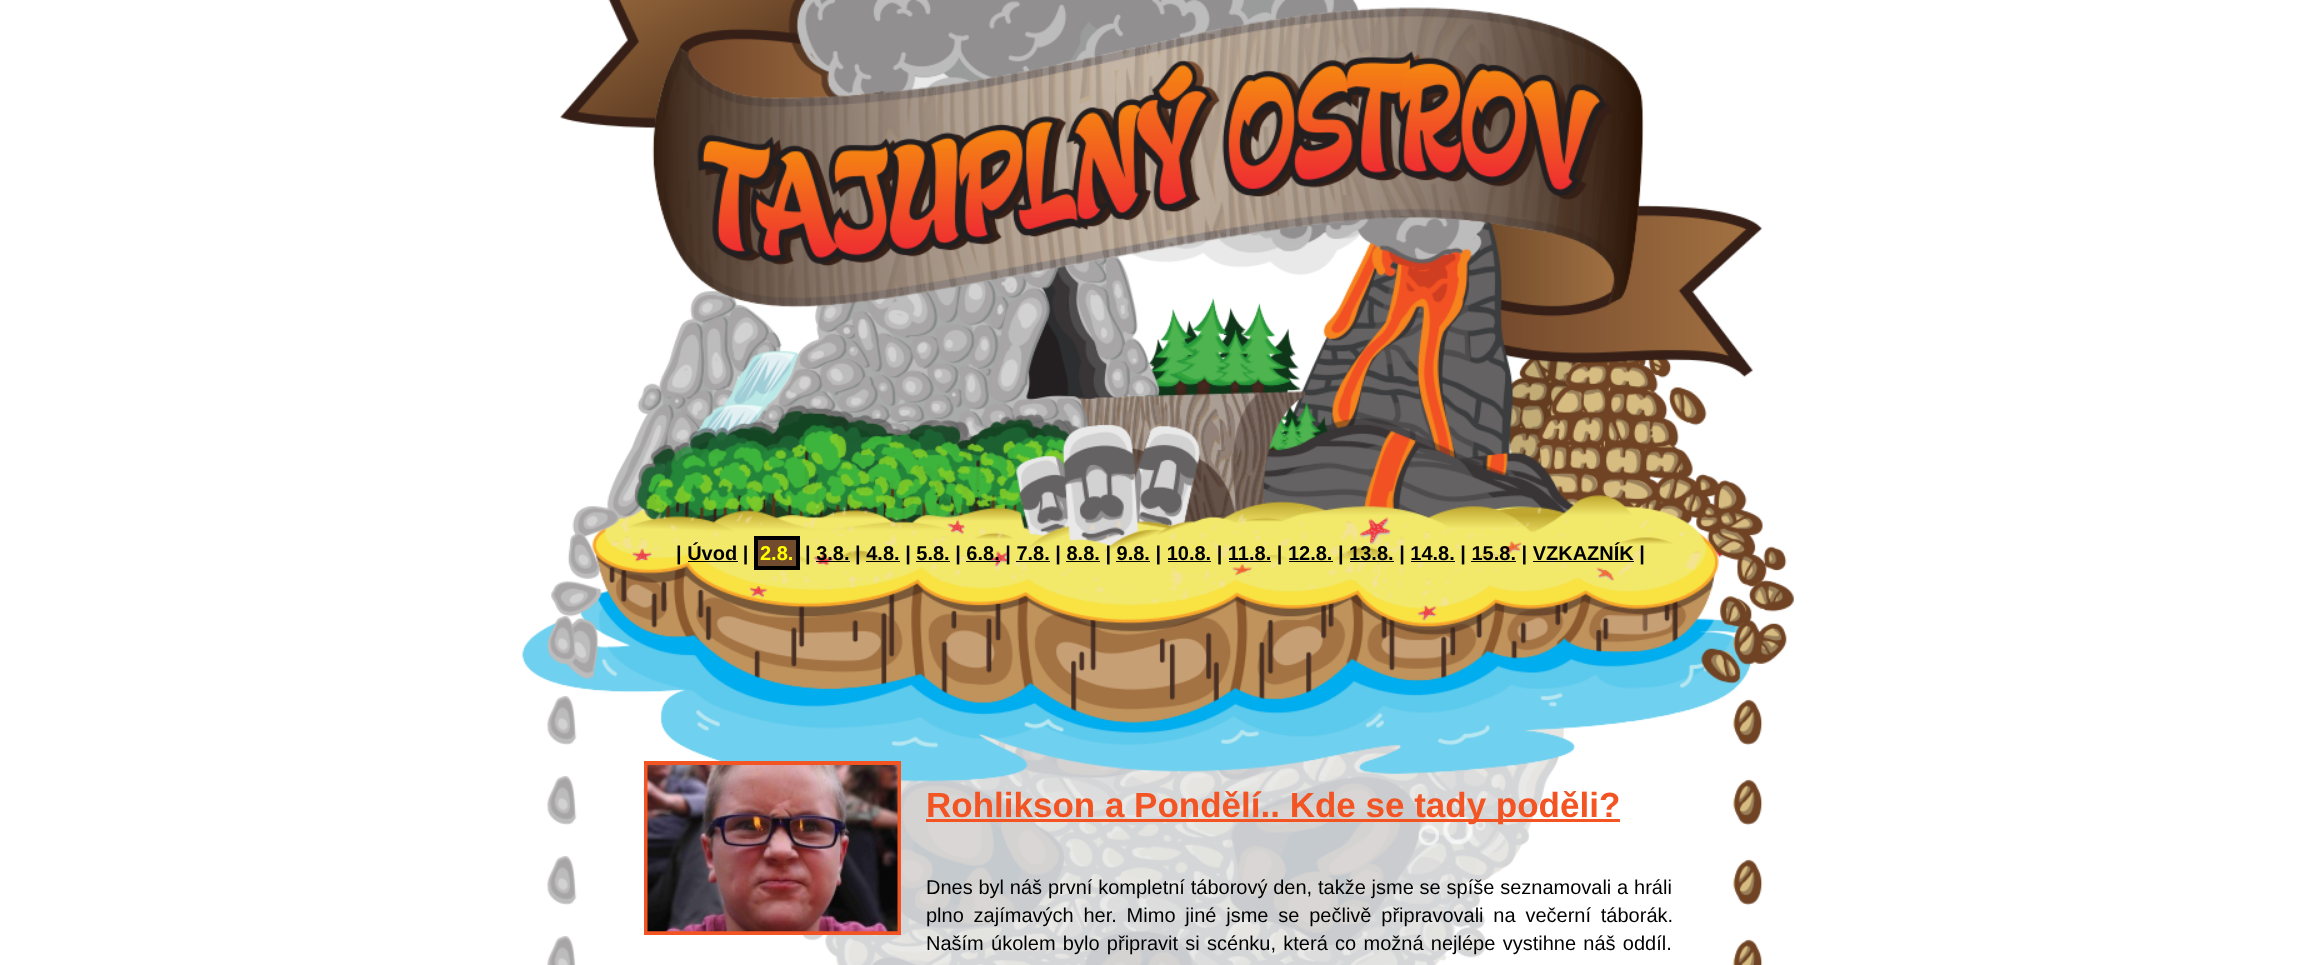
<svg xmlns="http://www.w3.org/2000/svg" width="2315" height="965">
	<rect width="100%" height="100%" fill="#FFFFFF" />
	<image x="522" y="0" width="1272" height="965" href="assets/img1.png" />
	<text x="676" y="560" font-family="Liberation Sans" font-size="20" font-weight="700" fill="#000000">| Úvod |</text>
	<rect x="756" y="538" width="42" height="30" fill="#714B2B" stroke="#000000" stroke-width="4" />
	<text x="760" y="560" font-family="Liberation Sans" font-size="20" font-weight="700" fill="#FFFF00">2.8.</text>
	<text x="805" y="560" font-family="Liberation Sans" font-size="20" font-weight="700" fill="#000000">| 3.8. | 4.8. | 5.8. | 6.8. | 7.8. | 8.8. | 9.8. | 10.8. | 11.8. | 12.8. | 13.8. | 14.8. | 15.8. | VZKAZNÍK |</text>
	<rect x="688" y="561" width="50" height="1" fill="#000000" />
	<rect x="816" y="561" width="34" height="1" fill="#000000" />
	<rect x="866" y="561" width="34" height="1" fill="#000000" />
	<rect x="916" y="561" width="34" height="1" fill="#000000" />
	<rect x="966" y="561" width="34" height="1" fill="#000000" />
	<rect x="1016" y="561" width="34" height="1" fill="#000000" />
	<rect x="1066" y="561" width="34" height="1" fill="#000000" />
	<rect x="1116" y="561" width="34" height="1" fill="#000000" />
	<rect x="1168" y="561" width="43" height="1" fill="#000000" />
	<rect x="1229" y="561" width="42" height="1" fill="#000000" />
	<rect x="1289" y="561" width="44" height="1" fill="#000000" />
	<rect x="1350" y="561" width="44" height="1" fill="#000000" />
	<rect x="1411" y="561" width="44" height="1" fill="#000000" />
	<rect x="1471" y="561" width="45" height="1" fill="#000000" />
	<rect x="1533" y="561" width="101" height="1" fill="#000000" />
	<image x="547" y="616" width="1216" height="349" href="assets/img2.png" />
	<rect x="646" y="763" width="253" height="170" fill="none" stroke="#F25523" stroke-width="4" />
	<image x="647" y="765" width="251" height="167" href="assets/img3.png" />
	<image x="643" y="775" width="1" height="22" href="assets/img4.png" />
	<rect x="926" y="819" width="694" height="3" fill="#F25523" />
	<text x="926" y="817" font-family="Liberation Sans" font-size="35" font-weight="700" fill="#F25523">Rohlikson a Pondělí.. Kde se tady poděli?</text>
	<g font-family="Liberation Sans" font-size="20" fill="#000000">
		<text x="926" y="894" word-spacing="0.25">Dnes byl náš první kompletní táborový den, takže jsme se spíše seznamovali a hráli</text>
		<text x="926" y="922" word-spacing="4.25">plno zajímavých her. Mimo jiné jsme se pečlivě připravovali na večerní táborák.</text>
		<text x="926" y="950" word-spacing="1.75">Naším úkolem bylo připravit si scénku, která co možná nejlépe vystihne náš oddíl.</text>
	</g>
</svg>
